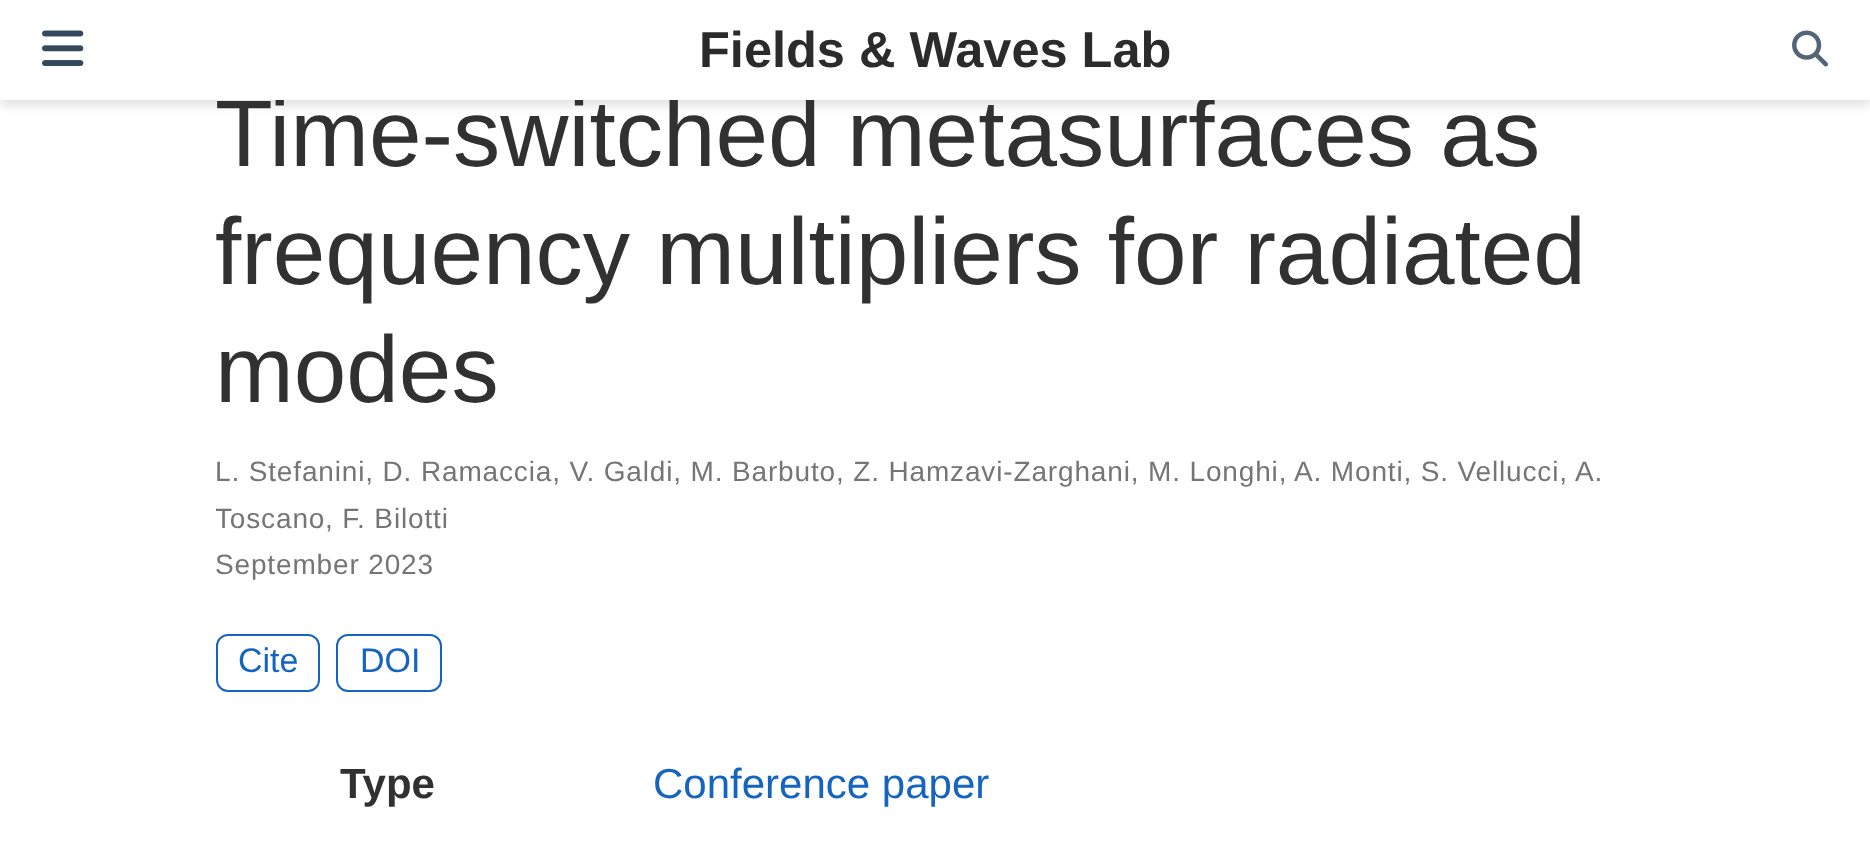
<svg xmlns="http://www.w3.org/2000/svg" width="1870" height="845">
	<defs>
		<clipPath id="clip1"><rect x="216" y="450" width="1440" height="138" /></clipPath>
	</defs>
	<rect width="100%" height="100%" fill="#FFFFFF" />
	<rect x="0" y="6" width="1870" height="100" fill="#000000" fill-opacity="0.11" filter="blur(5px)" />
	<text x="215" y="166" font-family="Liberation Sans" font-size="94.5" fill="#313131">Time-switched metasurfaces as</text>
	<rect x="0" y="0" width="1870" height="100" fill="#FFFFFF" />
	<image x="42" y="30" width="42" height="36" href="assets/img1.png" />
	<text x="699" y="67" font-family="Liberation Sans" font-size="50.5" font-weight="700" fill="#2B2B2B">Fields &amp; Waves Lab</text>
	<image x="1792" y="30" width="36" height="37" href="assets/img2.png" />
	<g font-family="Liberation Sans" font-size="94.5" fill="#313131">
		<text x="215" y="284">frequency multipliers for radiated</text>
		<text x="215" y="402">modes</text>
	</g>
	<g font-family="Liberation Sans" font-size="28" letter-spacing="0.85" fill="#757575">
		<text x="215" y="481">L. Stefanini, D. Ramaccia, V. Galdi, M. Barbuto, Z. Hamzavi-Zarghani, M. Longhi,</text>
		<text x="1294" y="481">A. Monti, S. Vellucci,</text>
		<text x="1575" y="481">A.</text>
	</g>
	<g clip-path="url(#clip1)">
		<text x="215" y="528" font-family="Liberation Sans" font-size="28" letter-spacing="0.85" fill="#757575">Toscano</text>
	</g>
	<g font-family="Liberation Sans" font-size="28" letter-spacing="0.85" fill="#757575">
		<text x="325" y="528">, F. Bilotti</text>
		<text x="215" y="574">September 2023</text>
	</g>
	<rect x="217" y="635" width="102" height="56" rx="11" fill="none" stroke="#1565C0" stroke-width="2" />
	<text x="238" y="672" font-family="Liberation Sans" font-size="34" fill="#1565C0">Cite</text>
	<rect x="337" y="635" width="104" height="56" rx="11" fill="none" stroke="#1565C0" stroke-width="2" />
	<text x="360" y="672" font-family="Liberation Sans" font-size="34" fill="#1565C0">DOI</text>
	<text x="340" y="798" font-family="Liberation Sans" font-size="42" font-weight="700" fill="#313131">Type</text>
	<text x="653" y="798" font-family="Liberation Sans" font-size="42" fill="#1565C0">Conference paper</text>
</svg>
